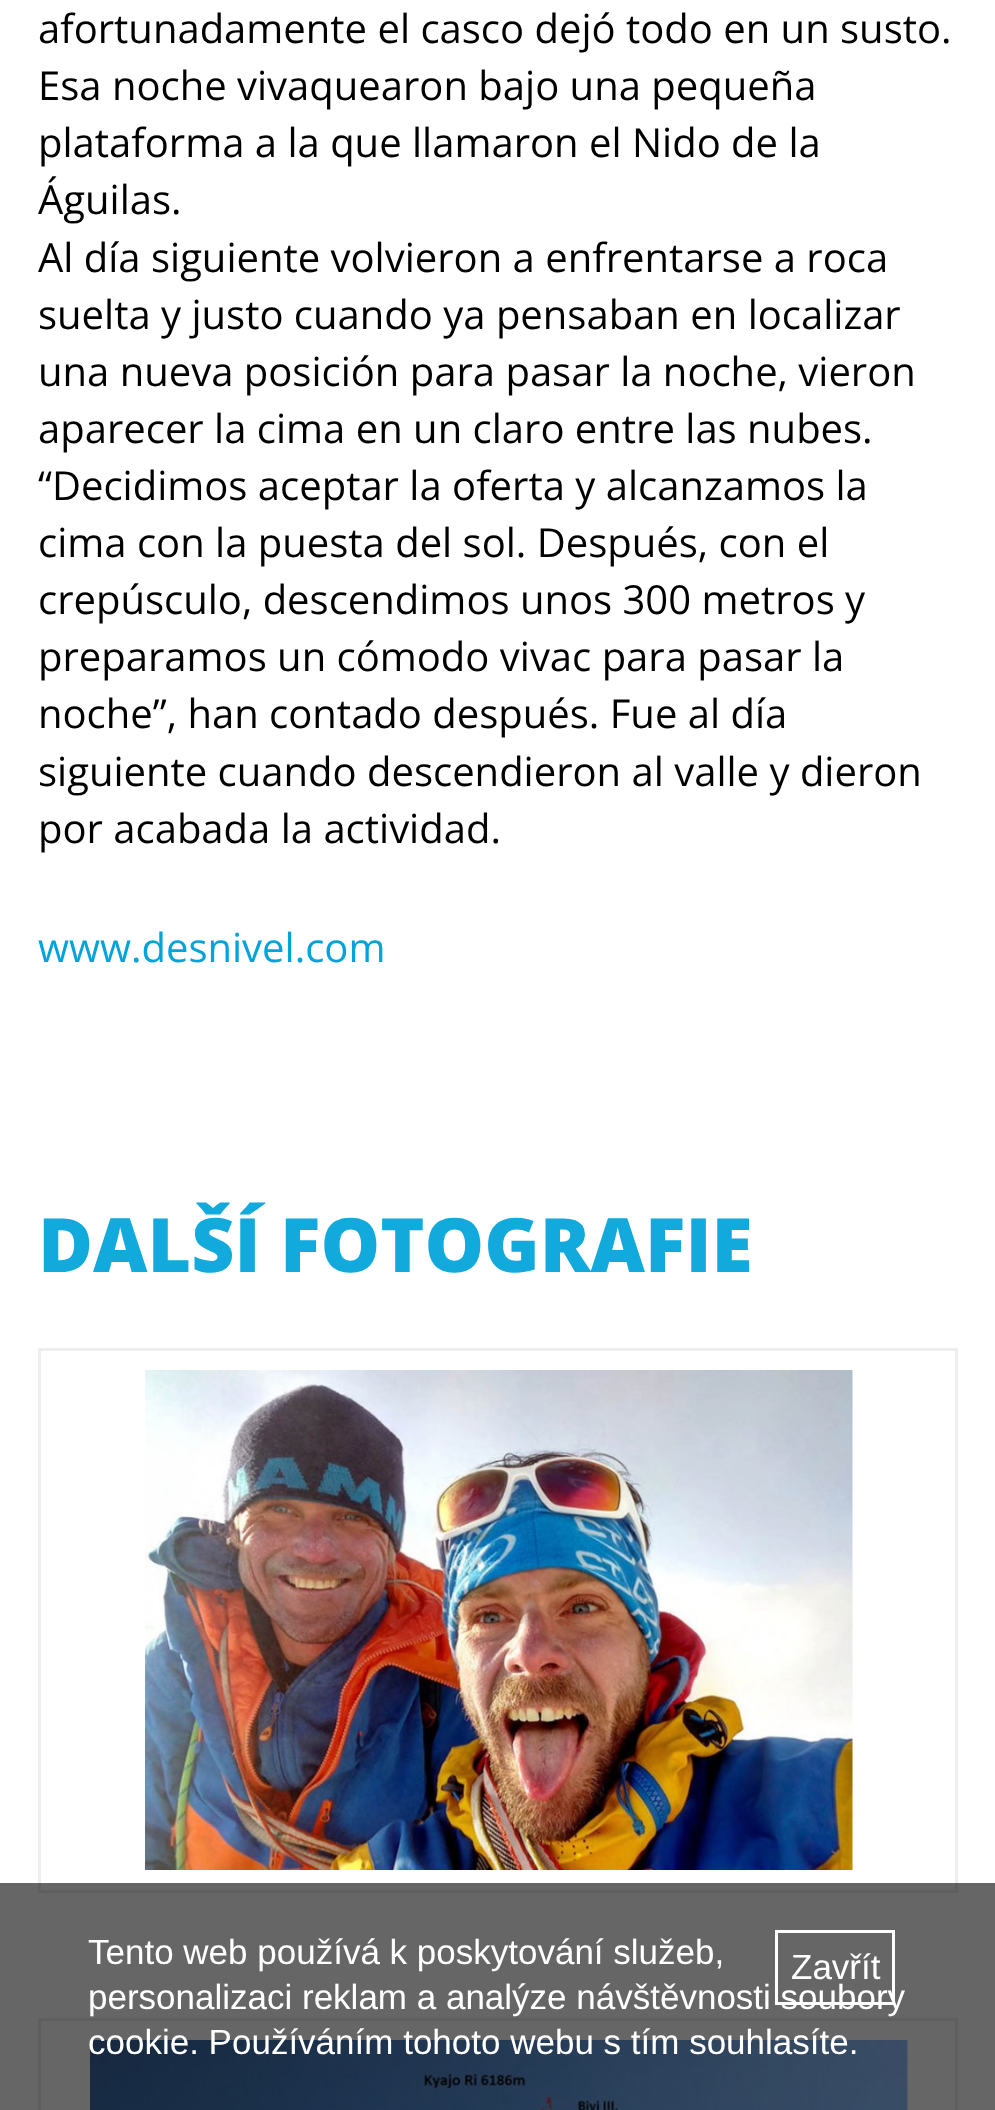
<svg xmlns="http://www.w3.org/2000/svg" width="995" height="2110">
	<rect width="100%" height="100%" fill="#FFFFFF" />
	<g font-family="Open Sans" font-size="40" fill="#000000">
		<text x="38" y="43">afortunadamente el casco dejó todo en un susto.</text>
		<text x="38" y="100">Esa noche vivaquearon bajo una pequeña</text>
		<text x="38" y="157">plataforma a la que llamaron el Nido de la</text>
		<text x="38" y="214">Águilas.</text>
		<text x="38" y="272">Al día siguiente volvieron a enfrentarse a roca</text>
		<text x="38" y="329">suelta y justo cuando ya pensaban en localizar</text>
		<text x="38" y="386">una nueva posición para pasar la noche, vieron</text>
		<text x="38" y="443">aparecer la cima en un claro entre las nubes.</text>
		<text x="38" y="500">“Decidimos aceptar la oferta y alcanzamos la</text>
		<text x="38" y="557">cima con la puesta del sol. Después, con el</text>
		<text x="38" y="614">crepúsculo, descendimos unos 300 metros y</text>
		<text x="38" y="671">preparamos un cómodo vivac para pasar la</text>
		<text x="38" y="728">noche”, han contado después. Fue al día</text>
		<text x="38" y="786">siguiente cuando descendieron al valle y dieron</text>
		<text x="38" y="843">por acabada la actividad.</text>
	</g>
	<text x="38" y="962" font-family="Open Sans" font-size="40" fill="#00A3DA">www.desnivel.com</text>
	<text x="38" y="1272" font-family="Open Sans" font-size="75" font-weight="800" fill="#12A9DD">DALŠÍ FOTOGRAFIE</text>
	<rect x="39.5" y="1349.5" width="917" height="542" fill="none" stroke="#EEEEEE" stroke-width="3" />
	<image x="145" y="1370" width="708" height="500" href="assets/img1.png" />
	<rect x="39.5" y="2019.5" width="917" height="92" fill="none" stroke="#EEEEEE" stroke-width="3" />
	<image x="90" y="2040" width="818" height="70" href="assets/img2.png" />
	<rect x="0" y="1883" width="995" height="227" fill="#000000" fill-opacity="0.6" />
	<text x="88" y="1964" font-family="Liberation Sans" font-size="35" fill="#FFFFFF">Tento web používá k poskytování služeb,</text>
	<rect x="776.5" y="1931.5" width="117" height="72" fill="none" stroke="#FFFFFF" stroke-width="3" />
	<g font-family="Liberation Sans" font-size="35" fill="#FFFFFF">
		<text x="791" y="1979">Zavřít</text>
		<text x="88" y="2009">personalizaci reklam a analýze návštěvnosti soubory</text>
		<text x="88" y="2054">cookie. Používáním tohoto webu s tím souhlasíte.</text>
	</g>
</svg>
